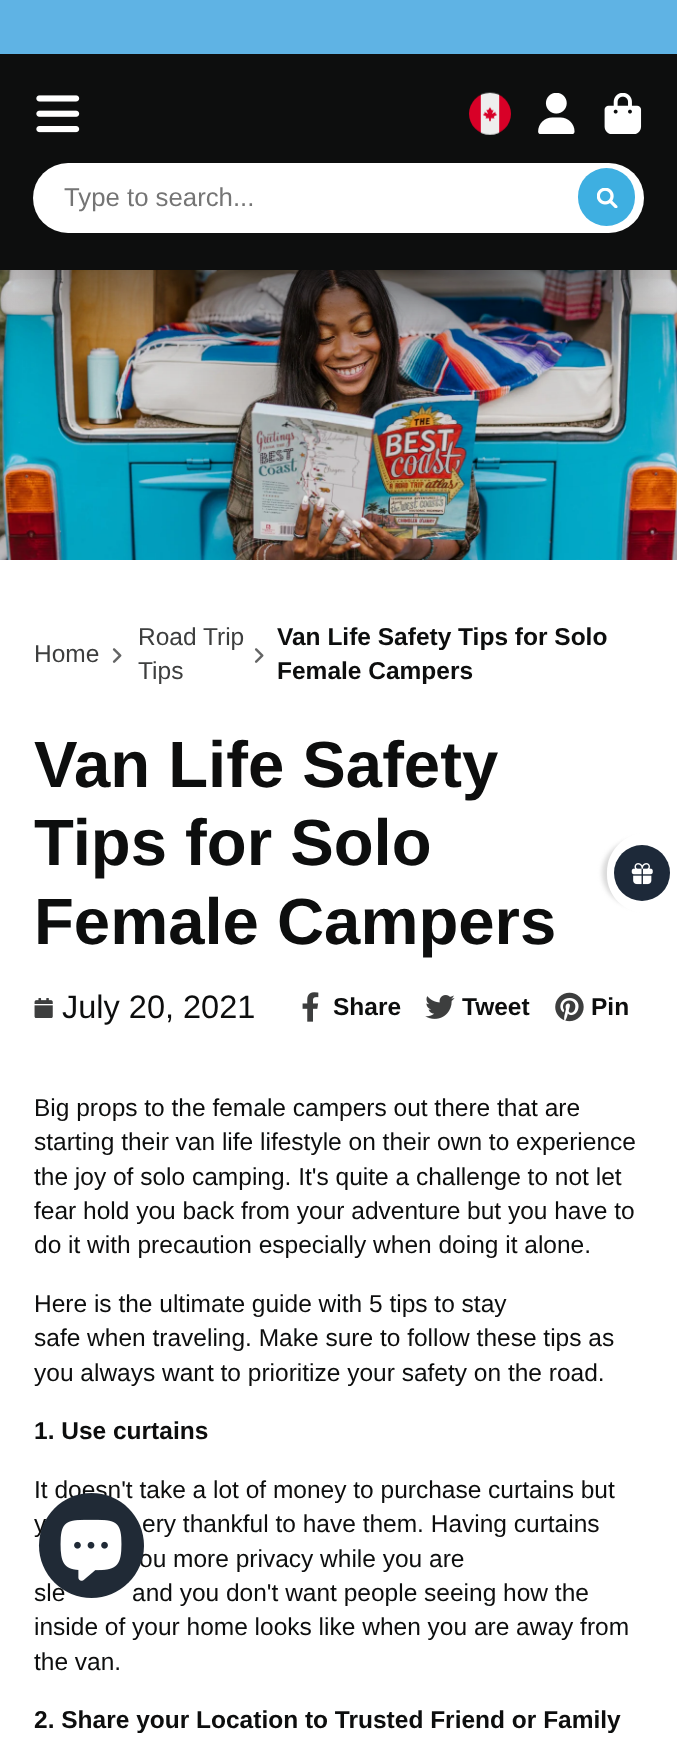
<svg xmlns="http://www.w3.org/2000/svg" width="677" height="1745">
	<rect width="100%" height="100%" fill="#FFFFFF" />
	<image x="0" y="270" width="677" height="290" href="assets/img6.png" />
	<rect x="25" y="123" width="628" height="168" fill="#010101" fill-opacity="0.4" filter="blur(33.5px)" />
	<rect x="25" y="154" width="628" height="168" fill="#010101" fill-opacity="0.3" filter="blur(76.5px)" />
	<rect x="0" y="0" width="677" height="54" fill="#5FB3E4" />
	<rect x="0" y="54" width="677" height="216" fill="#0D0E0E" />
	<image x="36" y="95" width="44" height="38" href="assets/img1.png" />
	<image x="469" y="92" width="42" height="43" href="assets/img2.png" />
	<image x="538" y="93" width="37" height="41" href="assets/img3.png" />
	<image x="604" y="93" width="38" height="41" href="assets/img4.png" />
	<rect x="33" y="163" width="611" height="70" rx="35" fill="#FFFFFF" />
	<text x="64" y="206" font-family="Liberation Sans" font-size="25.75" fill="#757575">Type to search...</text>
	<rect x="578" y="168" width="57" height="58" rx="28.5" fill="#3EAFE1" />
	<image x="597" y="188" width="21" height="20" href="assets/img5.png" />
	<text x="34" y="662" font-family="Liberation Sans" font-size="24.5" fill="#3D3E3E">Home</text>
	<image x="112" y="648" width="10" height="15" href="assets/img7.png" />
	<g font-family="Liberation Sans" font-size="24.5" fill="#3D3E3E">
		<text x="138" y="645">Road Trip</text>
		<text x="138" y="679">Tips</text>
	</g>
	<image x="254" y="648" width="10" height="15" href="assets/img8.png" />
	<g font-family="Liberation Sans" font-size="24.5" font-weight="700" fill="#0D0E0E">
		<text x="277" y="645">Van Life Safety Tips for Solo</text>
		<text x="277" y="679">Female Campers</text>
	</g>
	<g font-family="Liberation Sans" font-size="65.25" font-weight="700" fill="#0D0E0E">
		<text x="34" y="787">Van Life Safety</text>
		<text x="34" y="865">Tips for Solo</text>
		<text x="34" y="944">Female Campers</text>
	</g>
	<image x="34" y="998" width="19" height="20" href="assets/img9.png" />
	<text x="62" y="1018" font-family="Liberation Sans" font-size="32.5" fill="#0D0E0E">July 20, 2021</text>
	<image x="302" y="992" width="17" height="30" href="assets/img10.png" />
	<text x="333" y="1015" font-family="Liberation Sans" font-size="24.5" font-weight="700" fill="#0D0E0E">Share</text>
	<image x="425" y="995" width="30" height="24" href="assets/img11.png" />
	<text x="462" y="1015" font-family="Liberation Sans" font-size="24.5" font-weight="700" fill="#0D0E0E">Tweet</text>
	<image x="555" y="992" width="29" height="30" href="assets/img12.png" />
	<text x="591" y="1015" font-family="Liberation Sans" font-size="24.5" font-weight="700" fill="#0D0E0E">Pin</text>
	<g font-family="Liberation Sans" font-size="24.5" fill="#0D0E0E">
		<text x="34" y="1116">Big props to the female campers out there that are</text>
		<text x="34" y="1150">starting their van life lifestyle on their own to experience</text>
		<text x="34" y="1185">the joy of solo camping. It's quite a challenge to not let</text>
		<text x="34" y="1219">fear hold you back from your adventure but you have to</text>
		<text x="34" y="1253">do it with precaution especially when doing it alone.</text>
		<text x="34" y="1312">Here is the ultimate guide with 5 tips to stay</text>
		<text x="34" y="1346">safe when traveling. Make sure to follow these tips as</text>
		<text x="34" y="1381">you always want to prioritize your safety on the road.</text>
	</g>
	<text x="34" y="1439" font-family="Liberation Sans" font-size="24.5" font-weight="700" fill="#0D0E0E">1. Use curtains</text>
	<g font-family="Liberation Sans" font-size="24.5" fill="#0D0E0E">
		<text x="34" y="1498">It doesn't take a lot of money to purchase curtains but</text>
		<text x="34" y="1532">y</text>
		<text x="142" y="1532">ery thankful to have them. Having curtains</text>
		<text x="139" y="1567">ou more privacy while you are</text>
		<text x="34" y="1601">sle</text>
		<text x="132" y="1601">and you don't want people seeing how the</text>
		<text x="34" y="1635">inside of your home looks like when you are away from</text>
		<text x="34" y="1670">the van.</text>
	</g>
	<text x="34" y="1728" font-family="Liberation Sans" font-size="24.5" font-weight="700" fill="#0D0E0E">2. Share your Location to Trusted Friend or Family</text>
	<rect x="602" y="838" width="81" height="70" rx="39" fill="#DADADA" filter="blur(2px)" />
	<path d="M607 875V872C607 851 624 833 646 833H677V913H646C624 913 607 896 607 875Z" fill="#FFFFFF" />
	<circle cx="642" cy="873" r="28" fill="#1D2939" />
	<image x="631" y="863" width="22" height="22" href="assets/img13.png" />
	<circle cx="91.5" cy="1545.5" r="52.5" fill="#202A36" />
	<image x="60" y="1519" width="62" height="62" href="assets/img14.png" />
</svg>
